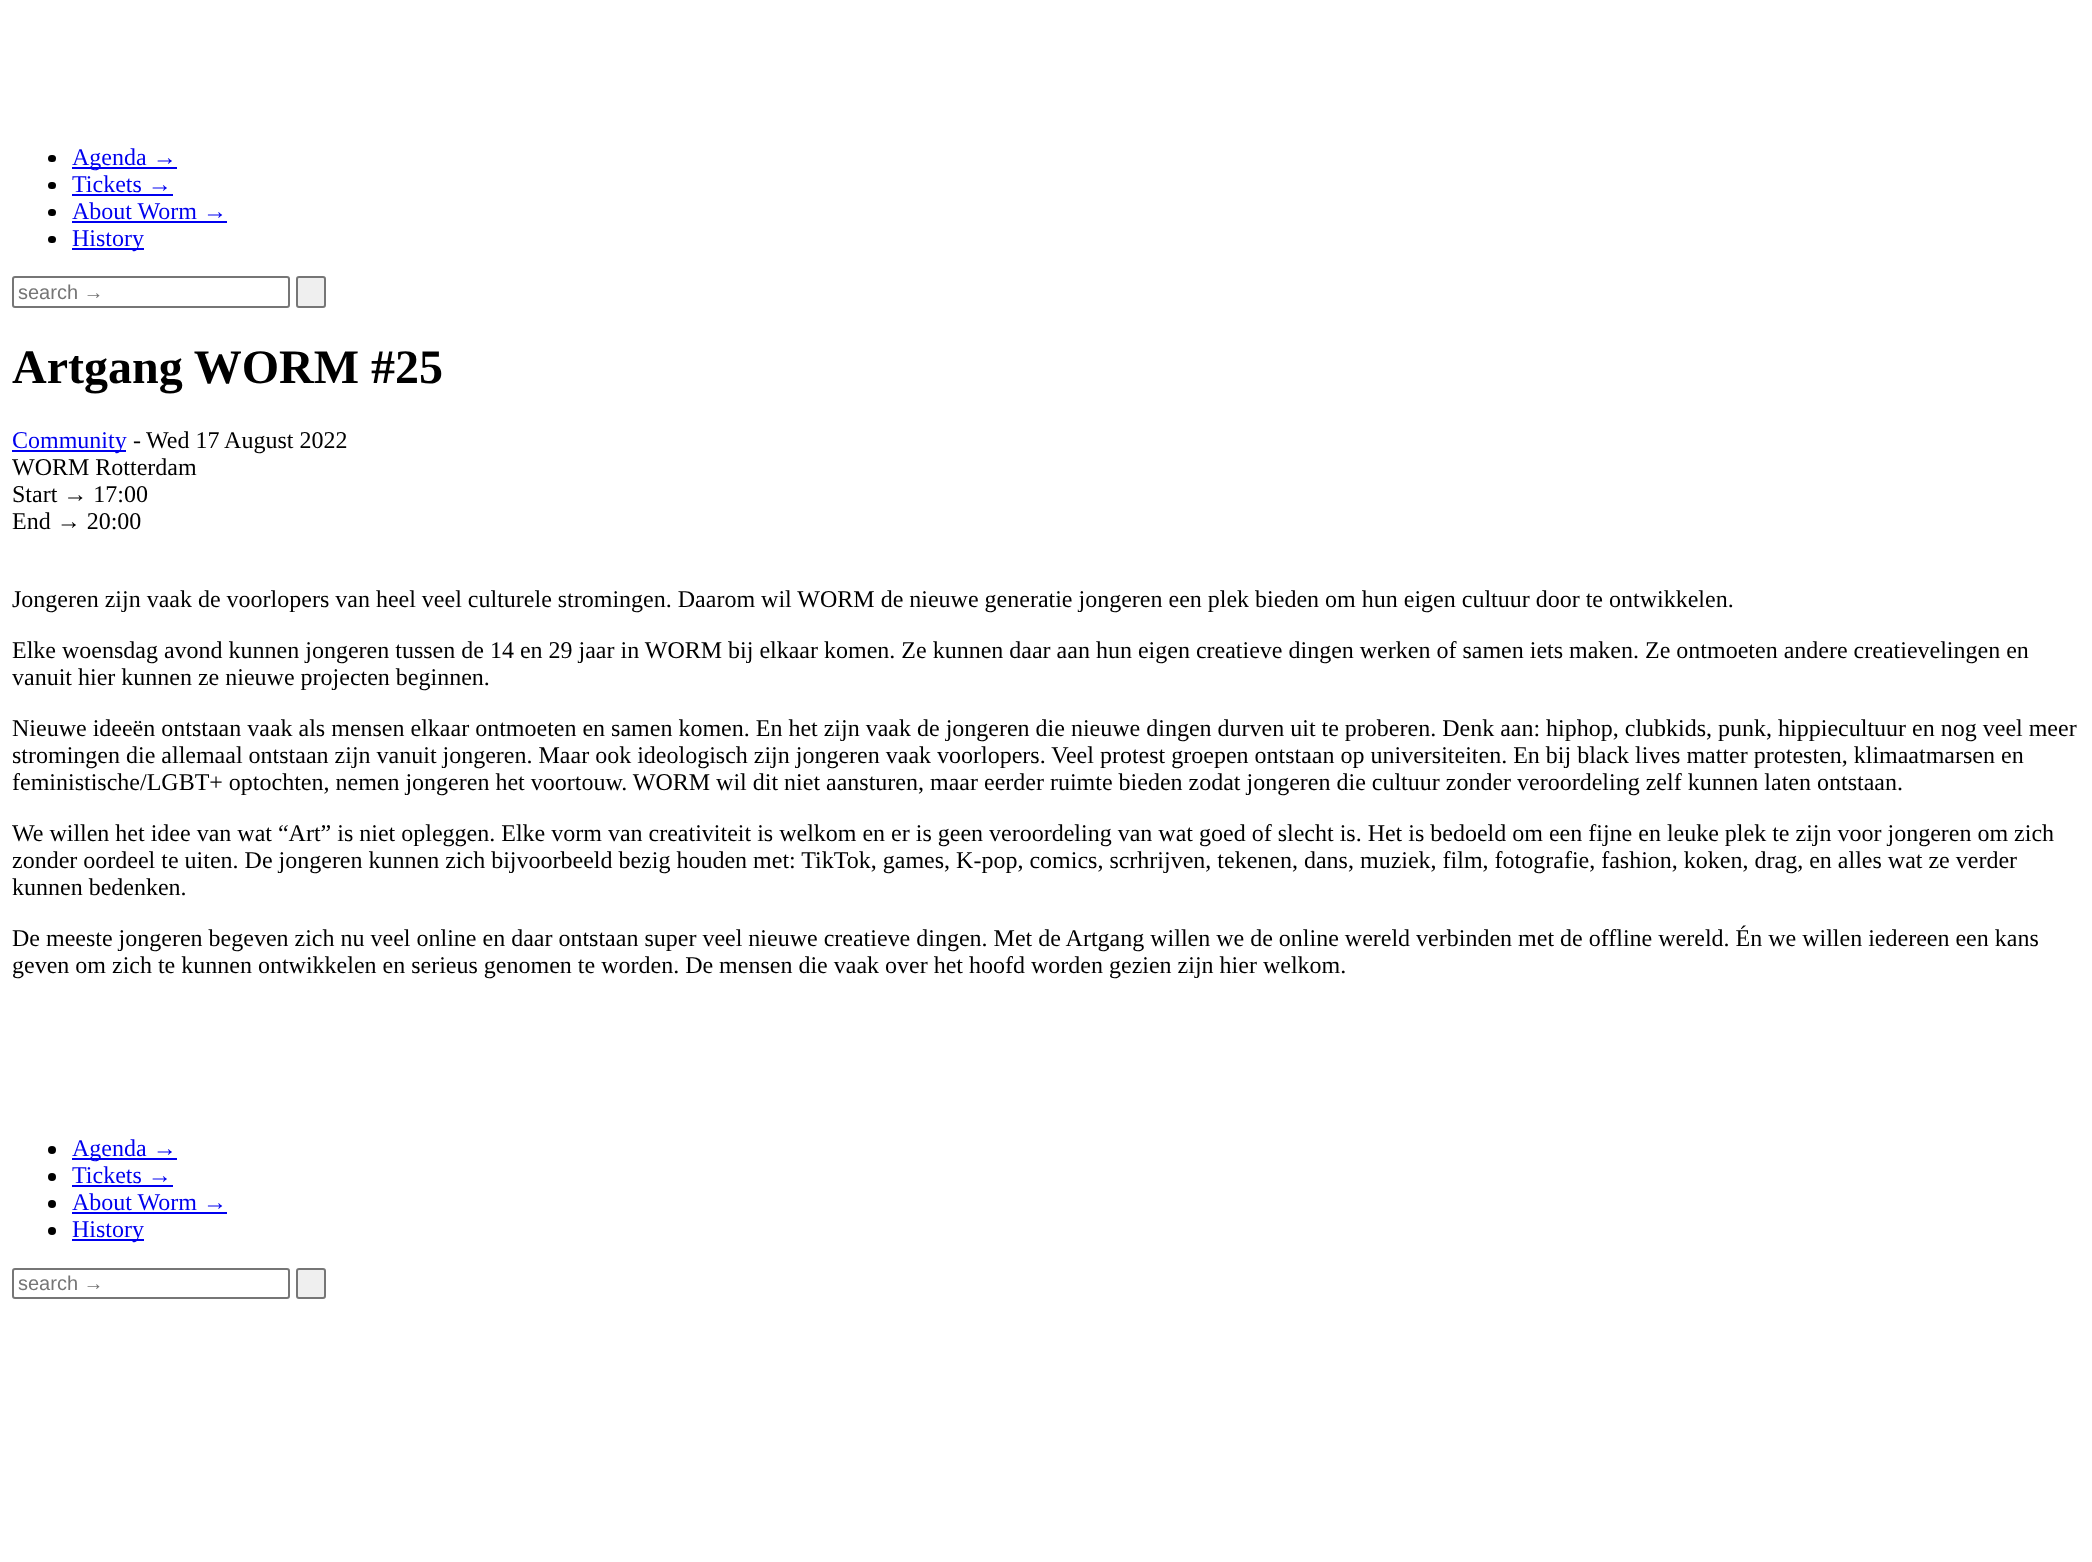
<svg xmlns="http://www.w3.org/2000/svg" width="2092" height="1562">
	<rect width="100%" height="100%" fill="#FFFFFF" />
	<rect x="48" y="155" width="8" height="7" rx="3.5" fill="#000000" />
	<rect x="72" y="167" width="105" height="2" fill="#0000EE" />
	<text x="72" y="165" font-family="Liberation Serif" font-size="24" fill="#0000EE">Agenda →</text>
	<rect x="48" y="182" width="8" height="7" rx="3.5" fill="#000000" />
	<text x="72" y="192" font-family="Liberation Serif" font-size="24" fill="#0000EE">Tickets →</text>
	<rect x="72" y="194" width="101" height="2" fill="#0000EE" />
	<rect x="48" y="209" width="8" height="7" rx="3.5" fill="#000000" />
	<text x="72" y="219" font-family="Liberation Serif" font-size="24" fill="#0000EE">About Worm →</text>
	<rect x="72" y="221" width="155" height="2" fill="#0000EE" />
	<rect x="48" y="236" width="8" height="7" rx="3.5" fill="#000000" />
	<rect x="72" y="248" width="72" height="2" fill="#0000EE" />
	<text x="72" y="246" font-family="Liberation Serif" font-size="24" fill="#0000EE">History</text>
	<rect x="13" y="277" width="276" height="30" rx="2" fill="none" stroke="#767676" stroke-width="2" />
	<text x="18" y="299" font-family="Liberation Sans" font-size="20" fill="#757575">search →</text>
	<rect x="297" y="277" width="28" height="30" rx="2" fill="#EFEFEF" stroke="#767676" stroke-width="2" />
	<text x="12" y="383" font-family="Liberation Serif" font-size="48" font-weight="700" fill="#000000">Artgang WORM #25</text>
	<rect x="12" y="450" width="114" height="2" fill="#0000EE" />
	<text x="12" y="448" font-family="Liberation Serif" font-size="24" fill="#0000EE">Community</text>
	<g font-family="Liberation Serif" font-size="24" fill="#000000">
		<text x="133" y="448">-</text>
		<text x="146" y="448">Wed 17 August 2022</text>
		<text x="12" y="475">WORM Rotterdam</text>
		<text x="12" y="502">Start → 17:00</text>
		<text x="12" y="529">End → 20:00</text>
		<text x="12" y="607">Jongeren zijn vaak de voorlopers van heel veel culturele stromingen. Daarom wil WORM de nieuwe generatie jongeren een plek bieden om hun eigen cultuur door te ontwikkelen.</text>
		<text x="12" y="658">Elke woensdag avond kunnen jongeren tussen de 14 en 29 jaar in WORM bij elkaar komen. Ze kunnen daar aan hun eigen creatieve dingen werken of samen iets maken. Ze ontmoeten andere creatievelingen en</text>
		<text x="12" y="685">vanuit hier kunnen ze nieuwe projecten beginnen.</text>
		<text x="12" y="736">Nieuwe ideeën ontstaan vaak als mensen elkaar ontmoeten en samen komen. En het zijn vaak de jongeren die nieuwe dingen durven uit te proberen. Denk aan: hiphop, clubkids, punk, hippiecultuur en nog veel meer</text>
		<text x="12" y="763">stromingen die allemaal ontstaan zijn vanuit jongeren. Maar ook ideologisch zijn jongeren vaak voorlopers. Veel protest groepen ontstaan op universiteiten. En bij black lives matter protesten, klimaatmarsen en</text>
		<text x="12" y="790">feministische/LGBT+ optochten, nemen jongeren het voortouw. WORM wil dit niet aansturen, maar eerder ruimte bieden zodat jongeren die cultuur zonder veroordeling zelf kunnen laten ontstaan.</text>
		<text x="12" y="841">We willen het idee van wat “Art” is niet opleggen. Elke vorm van creativiteit is welkom en er is geen veroordeling van wat goed of slecht is. Het is bedoeld om een fijne en leuke plek te zijn voor jongeren om zich</text>
		<text x="12" y="868">zonder oordeel te uiten. De jongeren kunnen zich bijvoorbeeld bezig houden met: TikTok, games, K-pop, comics, scrhrijven, tekenen, dans, muziek, film, fotografie, fashion, koken, drag, en alles wat ze verder</text>
		<text x="12" y="895">kunnen bedenken.</text>
		<text x="12" y="946">De meeste jongeren begeven zich nu veel online en daar ontstaan super veel nieuwe creatieve dingen. Met de Artgang willen we de online wereld verbinden met de offline wereld. Én we willen iedereen een kans</text>
		<text x="12" y="973">geven om zich te kunnen ontwikkelen en serieus genomen te worden. De mensen die vaak over het hoofd worden gezien zijn hier welkom.</text>
	</g>
	<circle cx="52" cy="1150" r="4" fill="#000000" />
	<rect x="72" y="1158" width="105" height="2" fill="#0000EE" />
	<text x="72" y="1156" font-family="Liberation Serif" font-size="24" fill="#0000EE">Agenda →</text>
	<circle cx="52" cy="1177" r="4" fill="#000000" />
	<text x="72" y="1183" font-family="Liberation Serif" font-size="24" fill="#0000EE">Tickets →</text>
	<rect x="72" y="1185" width="101" height="2" fill="#0000EE" />
	<circle cx="52" cy="1204" r="4" fill="#000000" />
	<text x="72" y="1210" font-family="Liberation Serif" font-size="24" fill="#0000EE">About Worm →</text>
	<rect x="72" y="1212" width="155" height="2" fill="#0000EE" />
	<circle cx="52" cy="1231" r="4" fill="#000000" />
	<rect x="72" y="1239" width="72" height="2" fill="#0000EE" />
	<text x="72" y="1237" font-family="Liberation Serif" font-size="24" fill="#0000EE">History</text>
	<rect x="13" y="1269" width="276" height="29" rx="2" fill="none" stroke="#767676" stroke-width="2" />
	<text x="18" y="1290" font-family="Liberation Sans" font-size="20" fill="#757575">search →</text>
	<rect x="297" y="1269" width="28" height="29" rx="2" fill="#EFEFEF" stroke="#767676" stroke-width="2" />
</svg>
